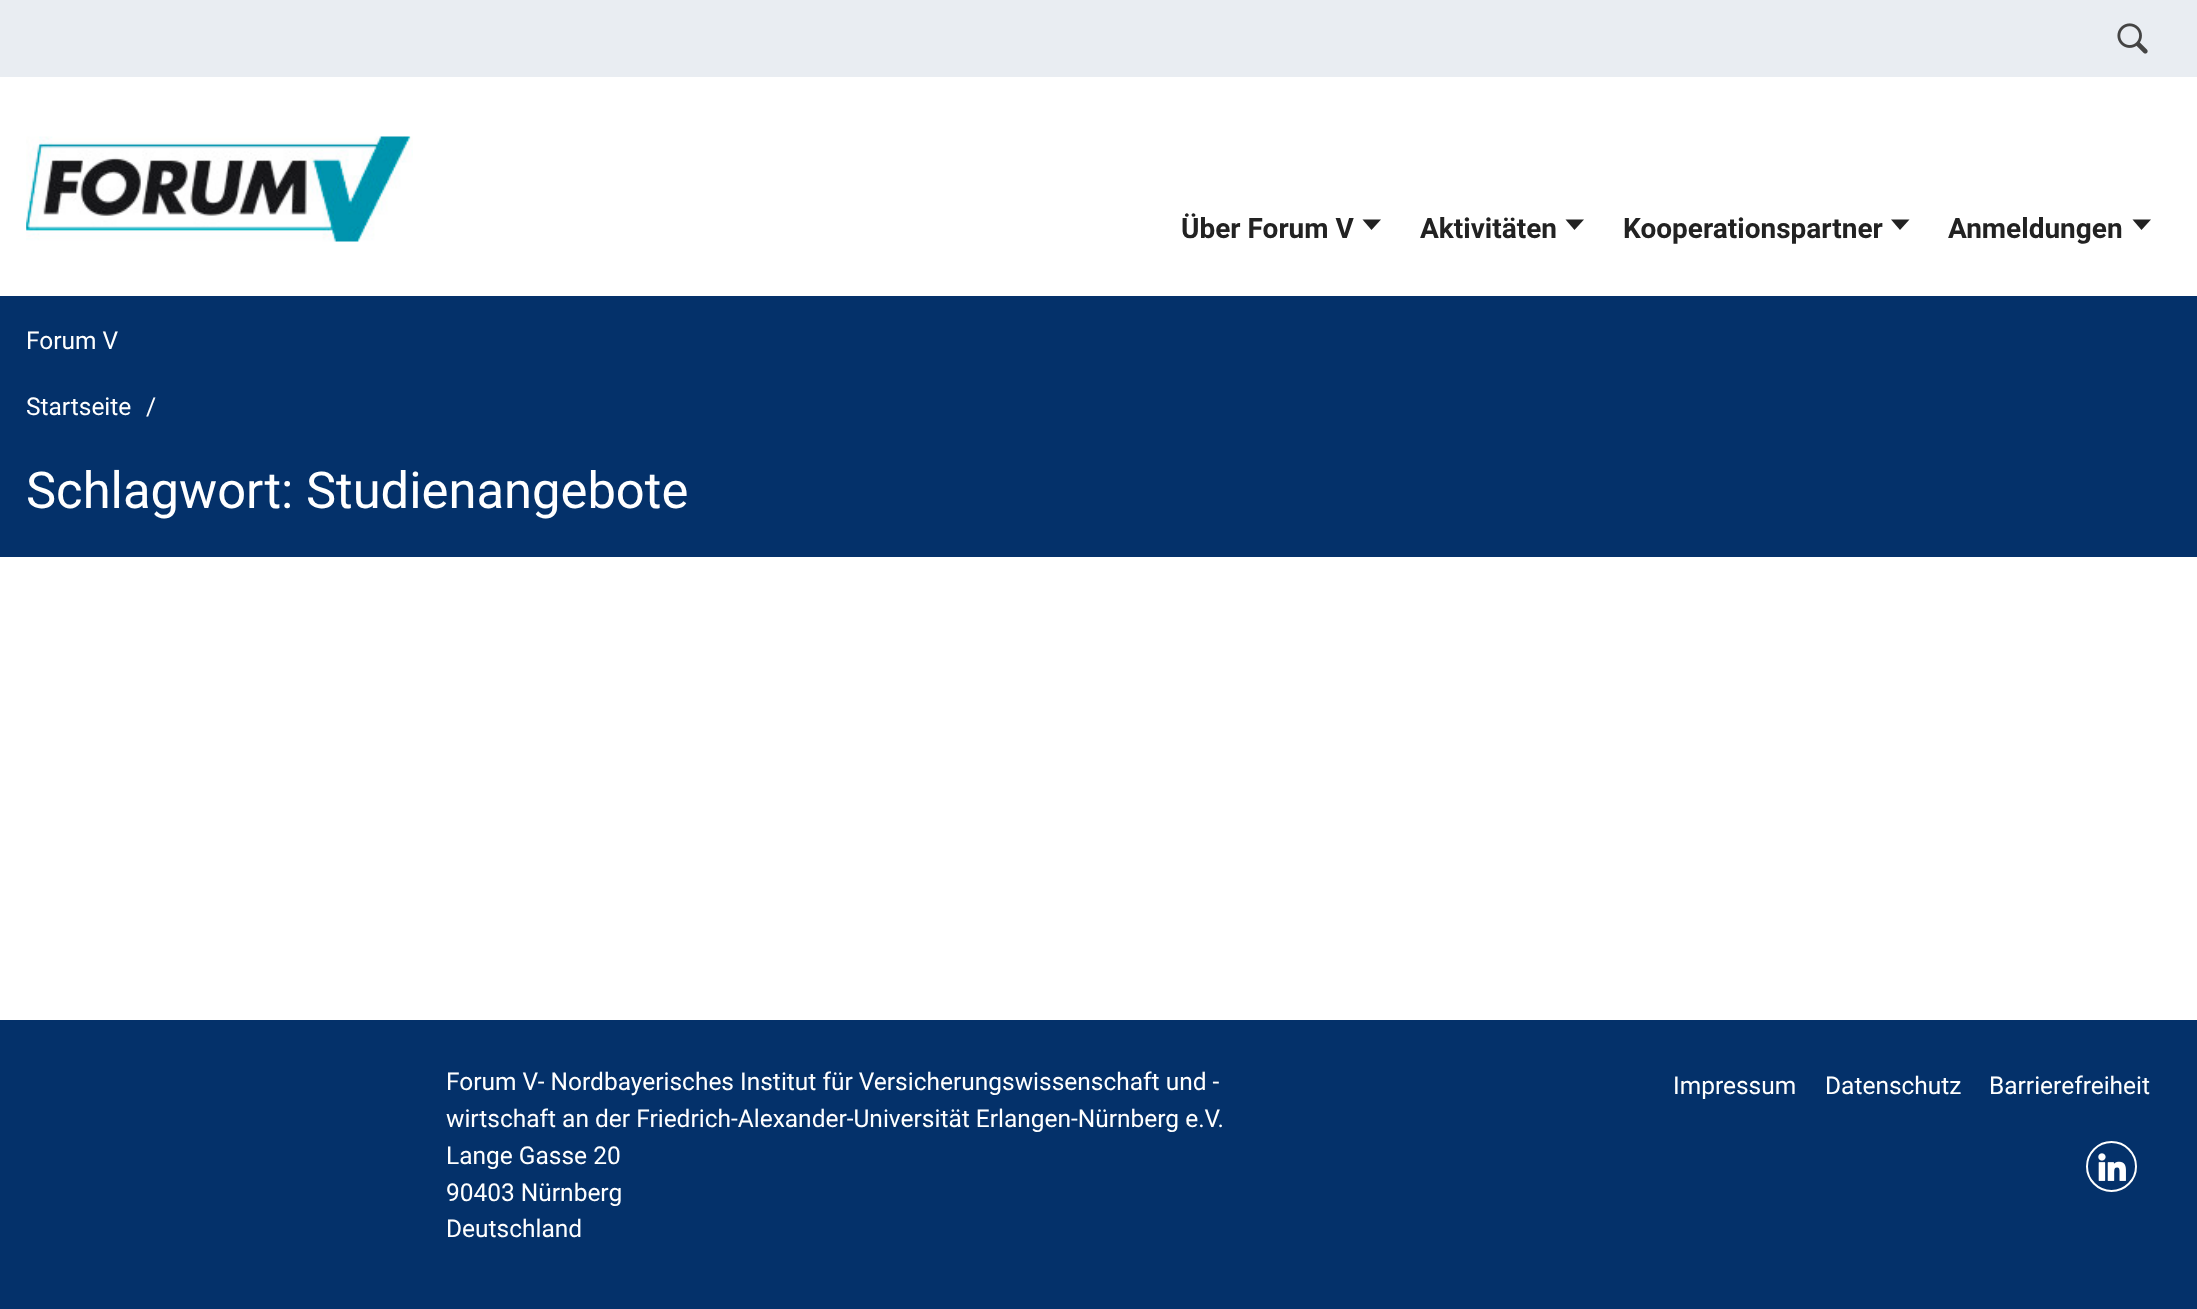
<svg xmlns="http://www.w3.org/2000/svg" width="2197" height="1309">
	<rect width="100%" height="100%" fill="#FFFFFF" />
	<rect x="0" y="0" width="2197" height="77" fill="#E9EDF2" />
	<image x="2117" y="23" width="31" height="31" href="assets/img1.png" />
	<image x="26" y="136" width="387" height="106" href="assets/img2.png" />
	<text x="1181" y="238" font-family="Roboto" font-size="28" font-weight="700" fill="#222222">Über Forum V</text>
	<path d="M1362.5 219.5L1371.5 230L1381 219.5Z" fill="#222222" />
	<text x="1420" y="238" font-family="Roboto" font-size="28" font-weight="700" fill="#222222">Aktivitäten</text>
	<path d="M1565.5 219.5L1574.5 230L1584 219.5Z" fill="#222222" />
	<text x="1623" y="238" font-family="Roboto" font-size="28" font-weight="700" fill="#222222">Kooperationspartner</text>
	<path d="M1891 219.5L1900 230L1909.5 219.5Z" fill="#222222" />
	<text x="1948" y="238" font-family="Roboto" font-size="28" font-weight="700" fill="#222222">Anmeldungen</text>
	<path d="M2132.5 219.5L2141.5 230L2151 219.5Z" fill="#222222" />
	<rect x="0" y="296" width="2197" height="261" fill="#04316A" />
	<g font-family="Roboto" font-size="24.5" fill="#FFFFFF">
		<text x="26" y="349">Forum V</text>
		<text x="26" y="415">Startseite</text>
		<text x="146" y="415">/</text>
	</g>
	<text x="26" y="508" font-family="Roboto" font-size="50.75" fill="#FFFFFF">Schlagwort: Studienangebote</text>
	<rect x="0" y="1020" width="2197" height="289" fill="#04316A" />
	<g font-family="Roboto" font-size="24.5" fill="#FFFFFF">
		<text x="446" y="1090">Forum V- Nordbayerisches Institut für Versicherungswissenschaft und -</text>
		<text x="446" y="1127">wirtschaft an der Friedrich-Alexander-Universität Erlangen-Nürnberg e.V.</text>
		<text x="446" y="1164">Lange Gasse 20</text>
		<text x="446" y="1201">90403 Nürnberg</text>
		<text x="446" y="1237">Deutschland</text>
		<text x="1673" y="1094">Impressum</text>
		<text x="1825" y="1094">Datenschutz</text>
		<text x="1989" y="1094">Barrierefreiheit</text>
	</g>
	<circle cx="2111.5" cy="1166.5" r="24.5" fill="none" stroke="#FFFFFF" stroke-width="2" />
	<image x="2098" y="1153" width="28" height="28" href="assets/img3.png" />
</svg>
